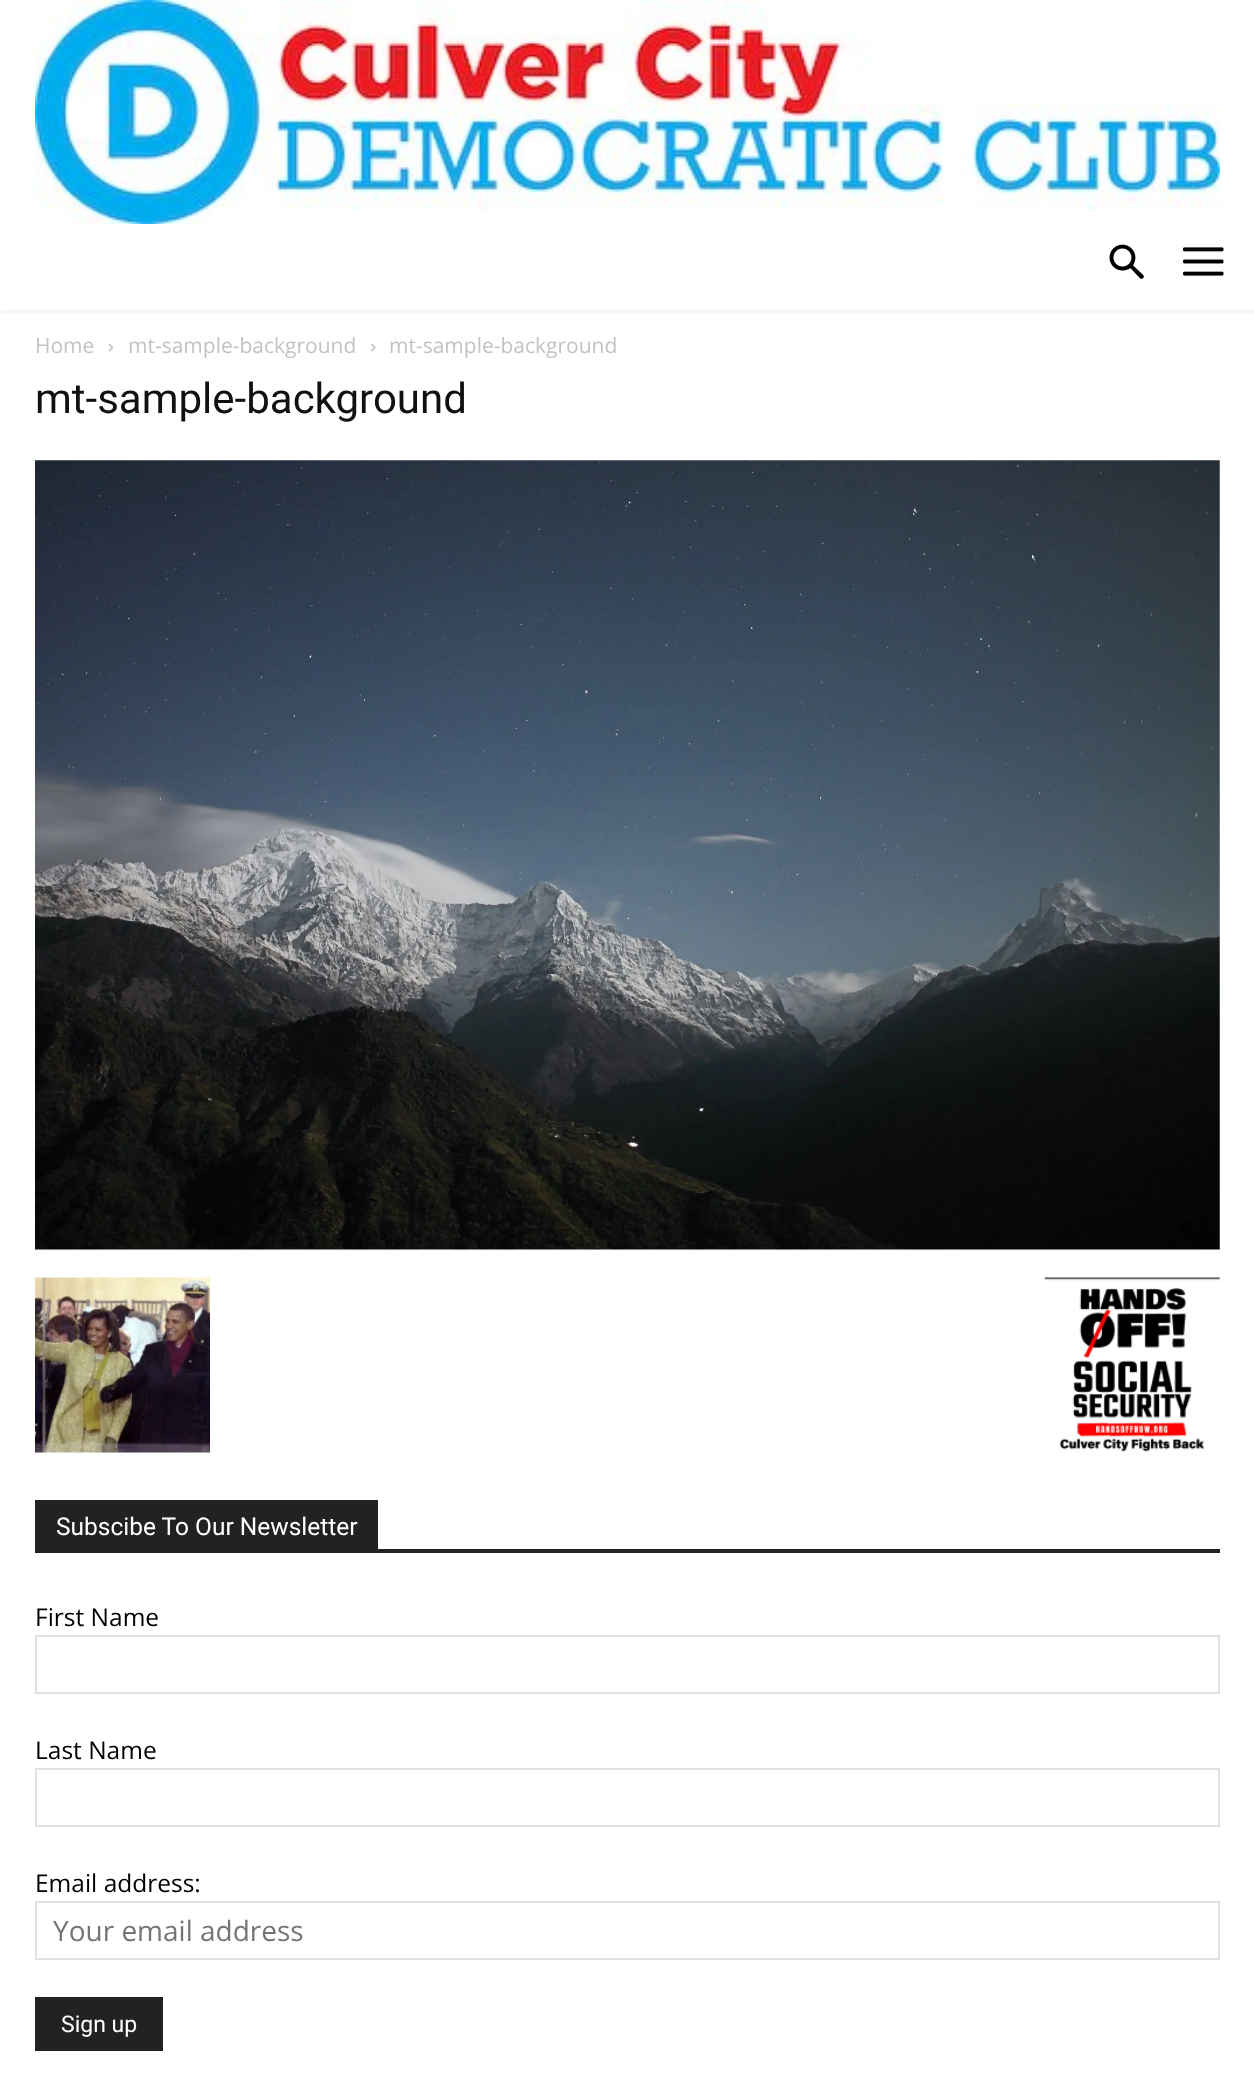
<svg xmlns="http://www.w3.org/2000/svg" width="1254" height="2094">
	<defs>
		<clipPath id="clip1"><rect x="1" y="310" width="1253" height="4" /></clipPath>
	</defs>
	<rect width="100%" height="100%" fill="#FFFFFF" />
	<image x="35" y="0" width="1185" height="224" href="assets/img1.png" />
	<image x="1109" y="244" width="35" height="35" href="assets/img2.png" />
	<image x="1183" y="247" width="41" height="29" href="assets/img3.png" />
	<g clip-path="url(#clip1)">
		<rect x="2" y="4" width="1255" height="309" fill="#000000" fill-opacity="0.06" filter="blur(3.5px)" />
	</g>
	<text x="35" y="353" font-family="Open Sans" font-size="21" fill="#C3C3C3">Home</text>
	<image x="108" y="343" width="6" height="9" href="assets/img4.png" />
	<text x="128" y="353" font-family="Open Sans" font-size="21" fill="#C3C3C3">mt-sample-background</text>
	<image x="371" y="343" width="5" height="9" href="assets/img5.png" />
	<text x="389" y="353" font-family="Open Sans" font-size="21" fill="#C3C3C3">mt-sample-background</text>
	<text x="35" y="413" font-family="Roboto" font-size="42" fill="#111111">mt-sample-background</text>
	<image x="35" y="460" width="1185" height="790" href="assets/img6.png" />
	<image x="35" y="1277" width="175" height="176" href="assets/img7.png" />
	<image x="1044" y="1277" width="176" height="175" href="assets/img8.png" />
	<rect x="35" y="1549" width="1185" height="4" fill="#222222" />
	<rect x="35" y="1500" width="343" height="49" fill="#222222" />
	<text x="56" y="1535" font-family="Roboto" font-size="24.5" fill="#FFFFFF">Subscibe To Our Newsletter</text>
	<text x="35" y="1626" font-family="Open Sans" font-size="24.5" fill="#000000">First Name</text>
	<rect x="36" y="1636" width="1183" height="57" fill="none" stroke="#E1E1E1" stroke-width="2" />
	<text x="35" y="1759" font-family="Open Sans" font-size="24.5" fill="#000000">Last Name</text>
	<rect x="36" y="1769" width="1183" height="57" fill="none" stroke="#E1E1E1" stroke-width="2" />
	<text x="35" y="1892" font-family="Open Sans" font-size="24.5" fill="#000000">Email address:</text>
	<rect x="36" y="1902" width="1183" height="57" fill="none" stroke="#E1E1E1" stroke-width="2" />
	<text x="53" y="1941" font-family="Open Sans" font-size="28" fill="#757575">Your email address</text>
	<rect x="35" y="1997" width="128" height="54" fill="#222222" />
	<text x="61" y="2032" font-family="Roboto" font-size="23" fill="#FFFFFF">Sign up</text>
</svg>
